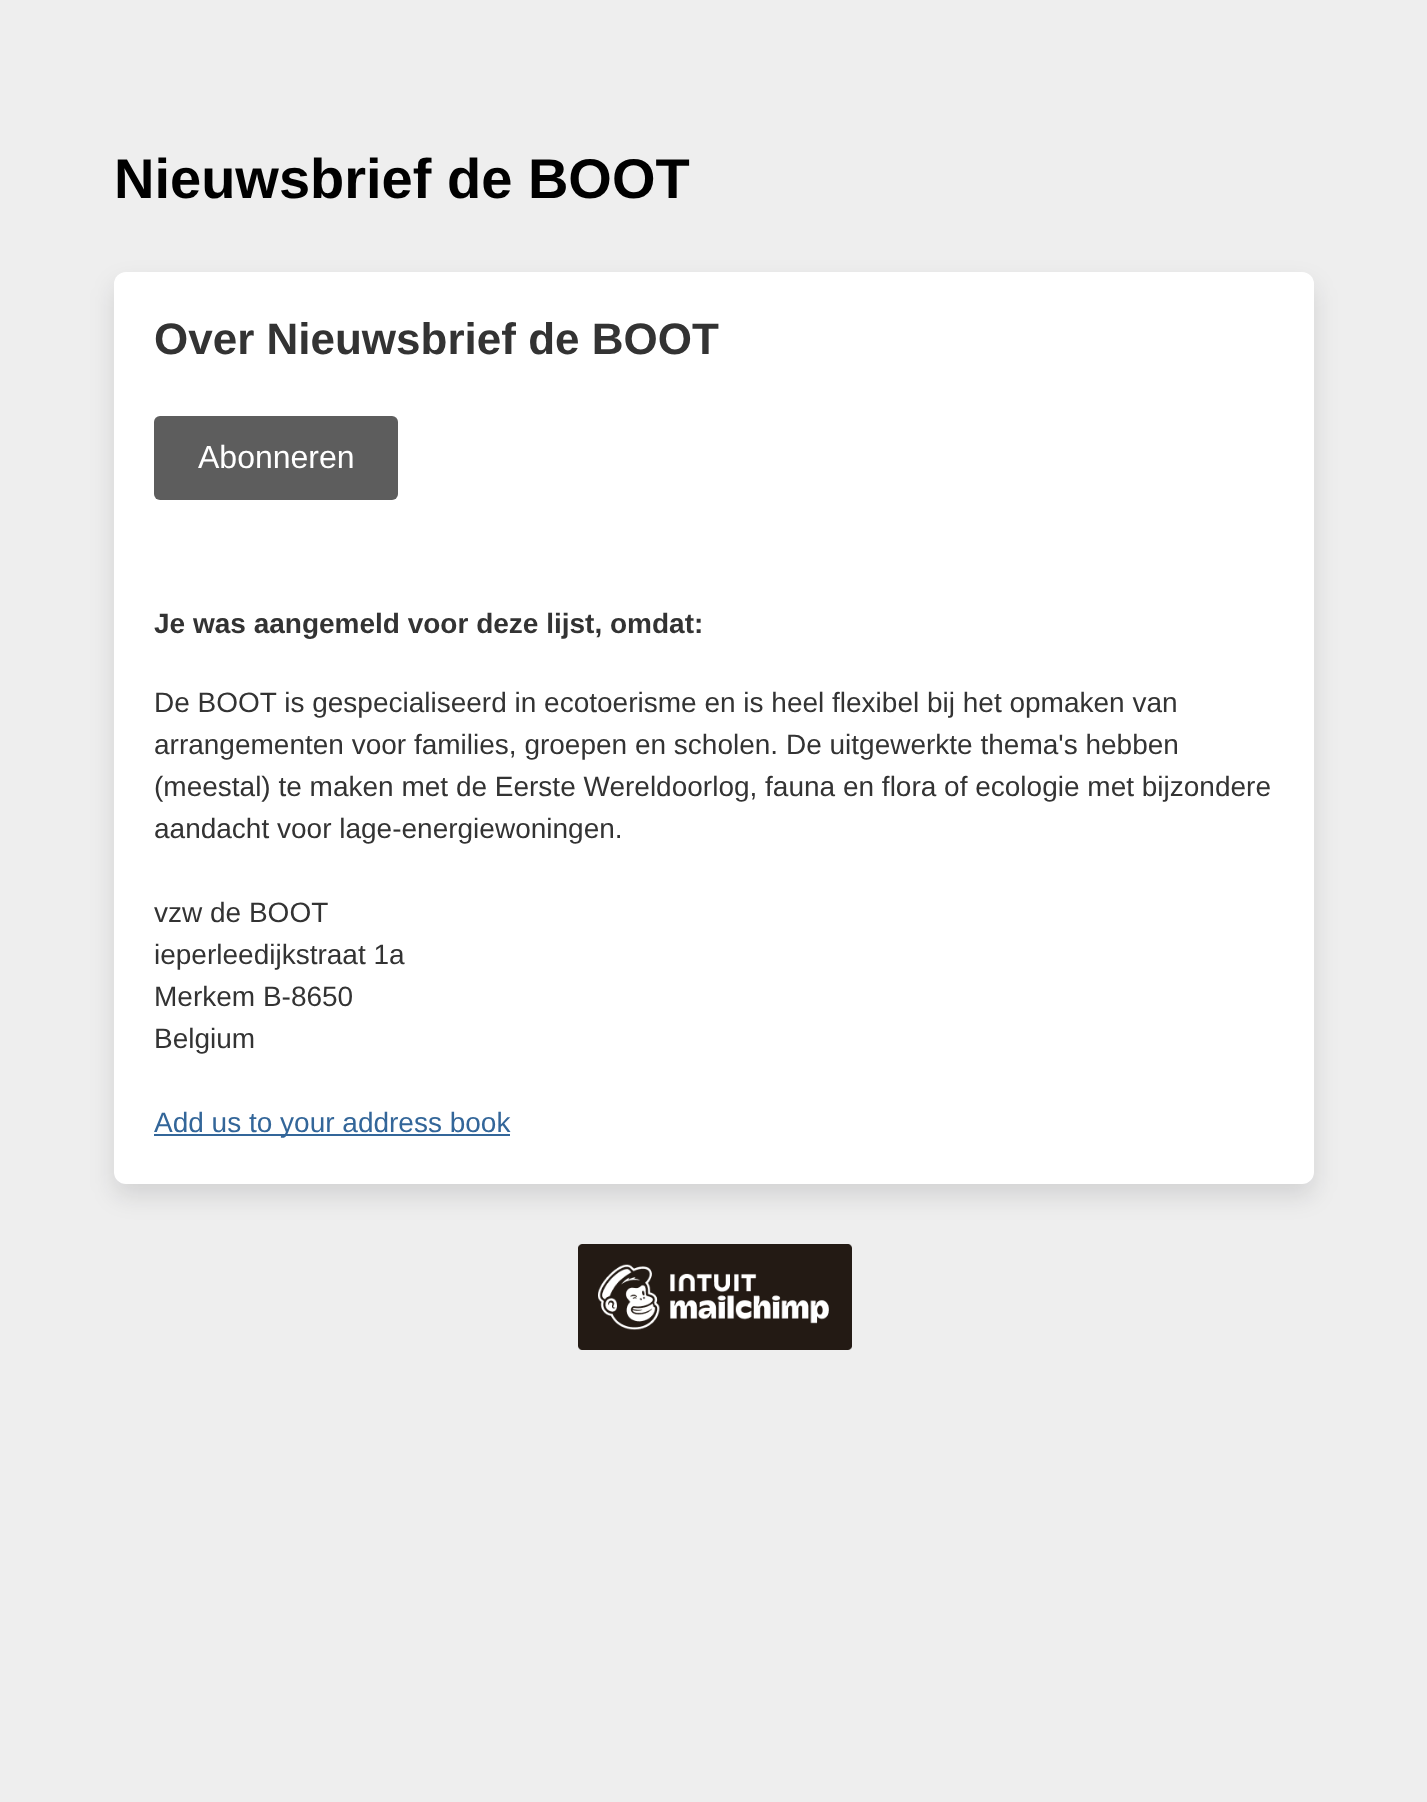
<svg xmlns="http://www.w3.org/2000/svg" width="1427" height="1802">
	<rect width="100%" height="100%" fill="#EEEEEE" />
	<text x="114" y="198" font-family="Liberation Sans" font-size="56" font-weight="700" fill="#000000">Nieuwsbrief de BOOT</text>
	<rect x="114" y="284" width="1200" height="912" rx="12" fill="#0D1216" fill-opacity="0.12" filter="blur(12px)" />
	<rect x="114" y="272" width="1200" height="912" rx="12" fill="#FFFFFF" />
	<text x="154" y="354" font-family="Liberation Sans" font-size="44" font-weight="700" fill="#333333">Over Nieuwsbrief de BOOT</text>
	<rect x="154" y="416" width="244" height="84" rx="6" fill="#5D5D5D" />
	<text x="198" y="468" font-family="Liberation Sans" font-size="32" fill="#FFFFFF">Abonneren</text>
	<text x="154" y="633" font-family="Liberation Sans" font-size="28" font-weight="700" fill="#333333">Je was aangemeld voor deze lijst, omdat:</text>
	<g font-family="Liberation Sans" font-size="28" fill="#333333">
		<text x="154" y="712">De BOOT is gespecialiseerd in ecotoerisme en is heel flexibel bij het opmaken van</text>
		<text x="154" y="754">arrangementen voor families, groepen en scholen. De uitgewerkte thema's hebben</text>
		<text x="154" y="796">(meestal) te maken met de Eerste Wereldoorlog, fauna en flora of ecologie met bijzondere</text>
		<text x="154" y="838">aandacht voor lage-energiewoningen.</text>
		<text x="154" y="922">vzw de BOOT</text>
		<text x="154" y="964">ieperleedijkstraat 1a</text>
		<text x="154" y="1006">Merkem B-8650</text>
		<text x="154" y="1048">Belgium</text>
	</g>
	<rect x="154" y="1134" width="356" height="2" fill="#336699" />
	<text x="154" y="1132" font-family="Liberation Sans" font-size="28" fill="#336699">Add us to your address book</text>
	<image x="578" y="1244" width="274" height="106" href="assets/img1.png" />
</svg>
